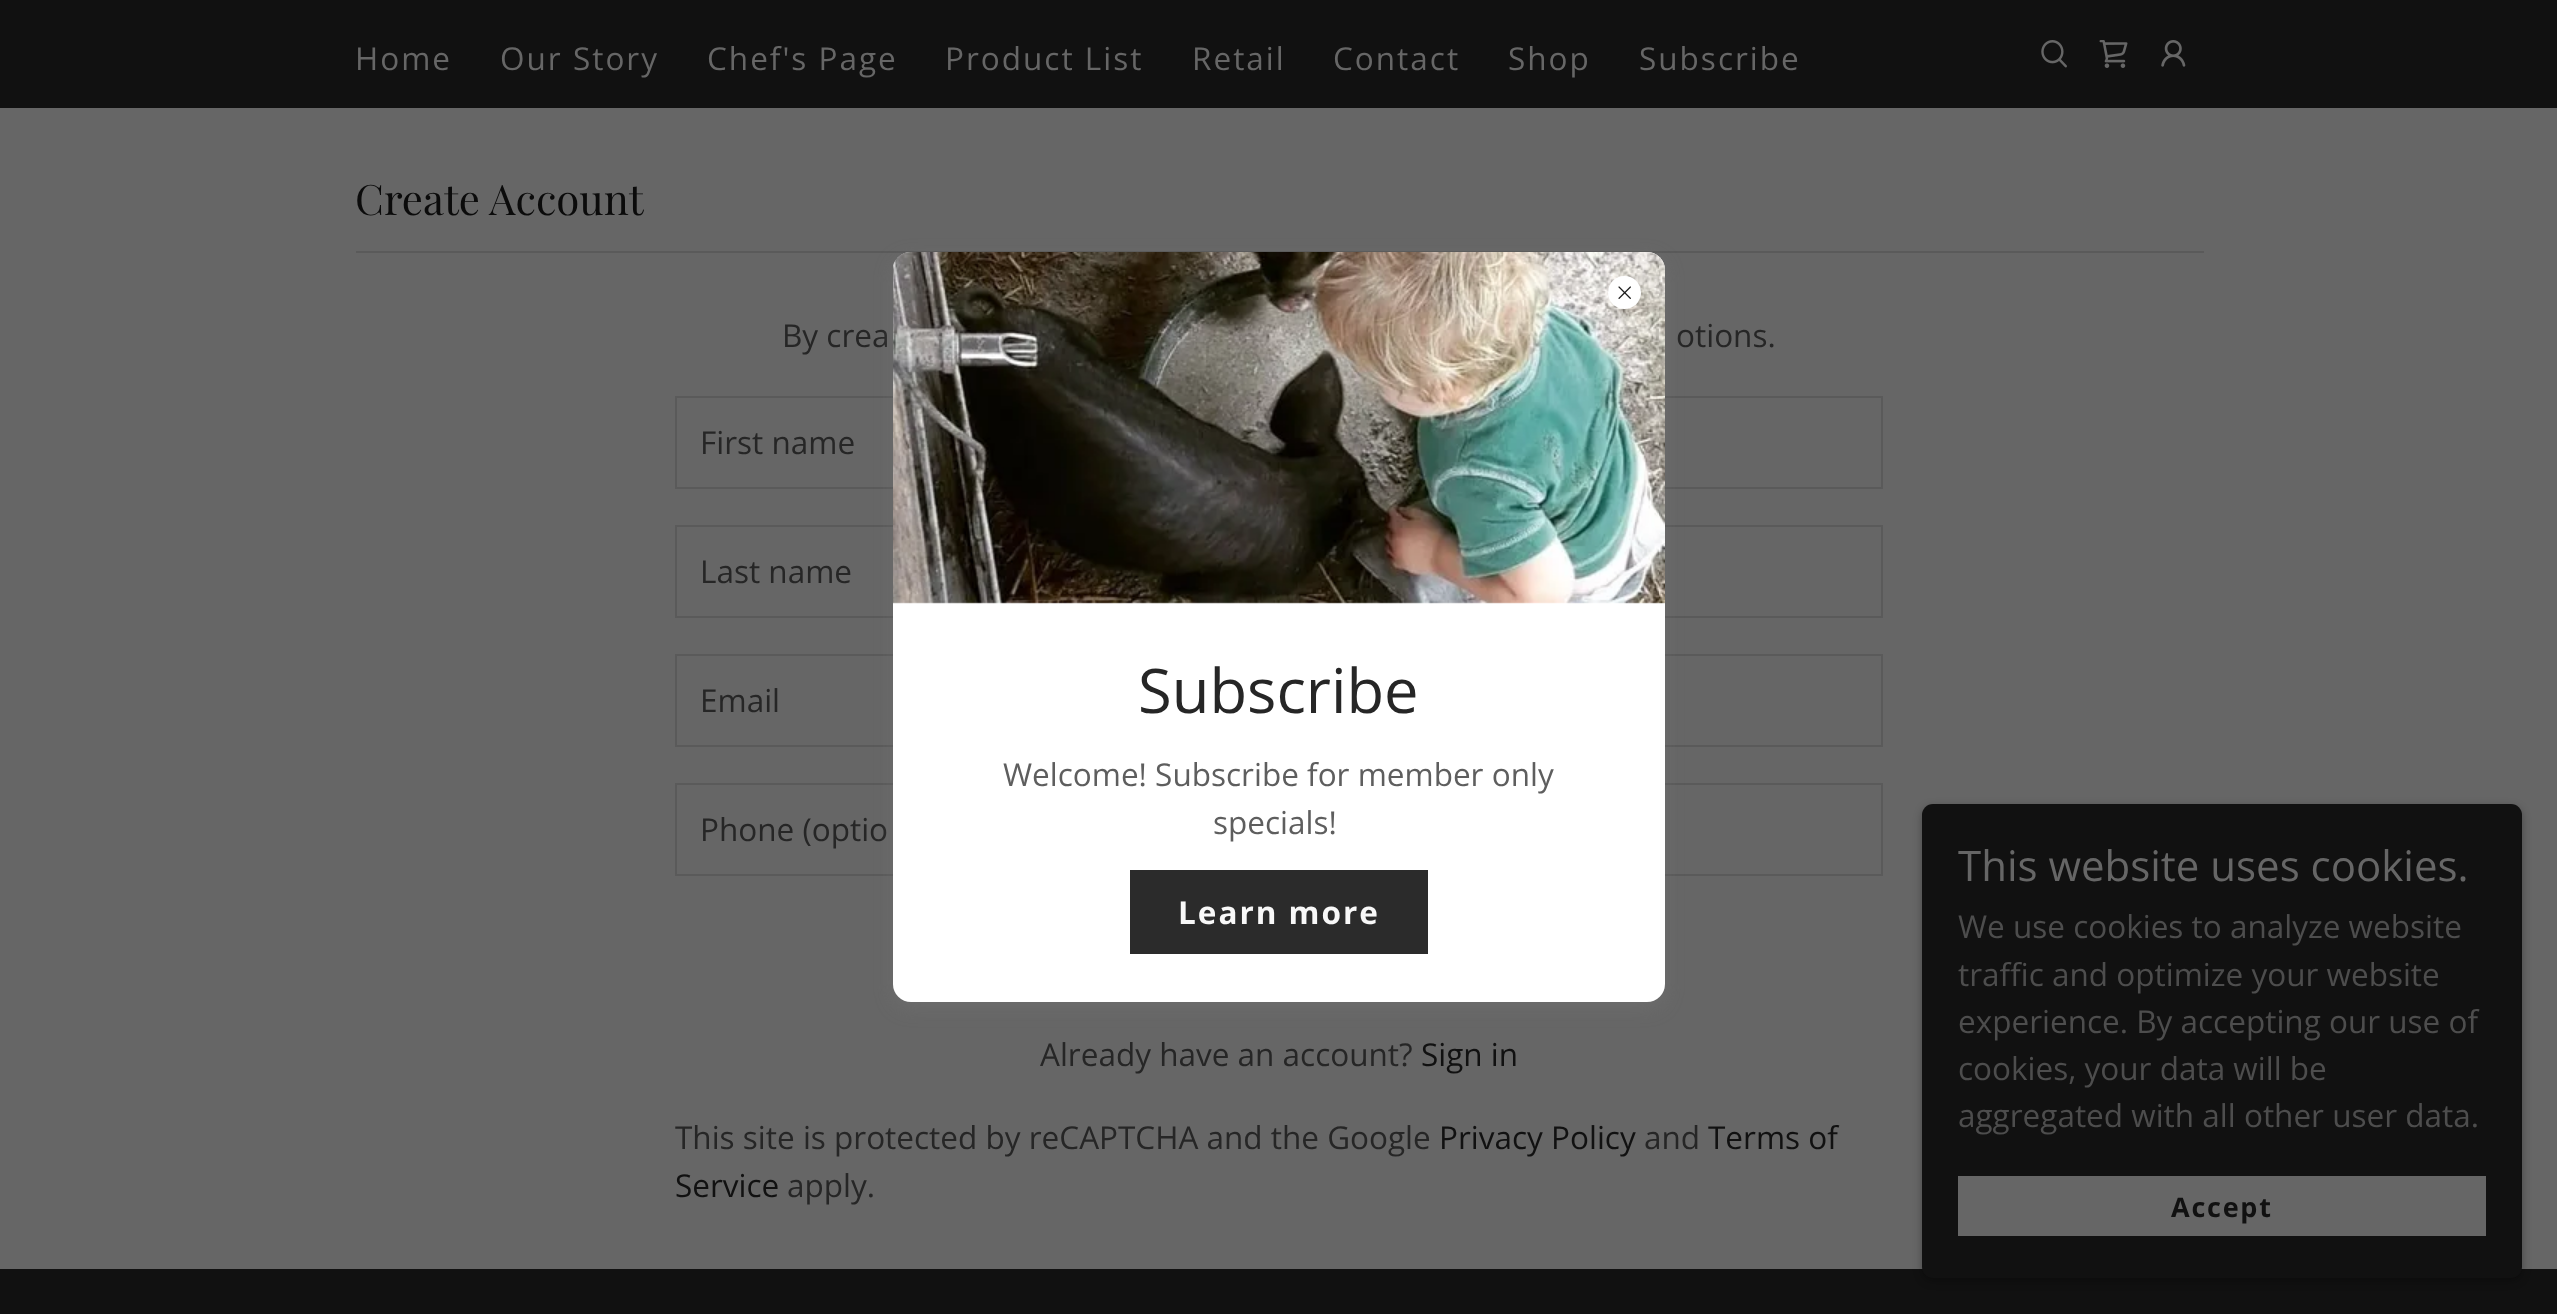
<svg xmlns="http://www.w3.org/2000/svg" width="2557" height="1314">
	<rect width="100%" height="100%" fill="#111111" />
	<g font-family="Open Sans" font-size="31.5" letter-spacing="2" fill="#666666">
		<text x="355" y="70">Home</text>
		<text x="500" y="70">Our Story</text>
		<text x="707" y="70">Chef's Page</text>
		<text x="945" y="70">Product List</text>
		<text x="1192" y="70">Retail</text>
		<text x="1333" y="70">Contact</text>
		<text x="1508" y="70">Shop</text>
		<text x="1639" y="70">Subscribe</text>
	</g>
	<image x="2041" y="40" width="26" height="28" href="assets/img1.png" />
	<image x="2099" y="40" width="29" height="28" href="assets/img2.png" />
	<image x="2161" y="40" width="25" height="27" href="assets/img3.png" />
	<rect x="0" y="108" width="2557" height="1161" fill="#666666" />
	<text x="355" y="215" font-family="Playfair Display" font-size="42" fill="#0B0B0B">Create Account</text>
	<rect x="356" y="251" width="1848" height="2" fill="#5A5A5A" />
	<g font-family="Open Sans" font-size="31.5" fill="#262626">
		<text x="782" y="347">By crea</text>
		<text x="1676" y="347">otions.</text>
	</g>
	<rect x="676" y="397" width="1206" height="91" fill="none" stroke="#5A5A5A" stroke-width="2" />
	<text x="700" y="454" font-family="Open Sans" font-size="31.5" fill="#262626">First name</text>
	<rect x="676" y="526" width="1206" height="91" fill="none" stroke="#5A5A5A" stroke-width="2" />
	<text x="700" y="583" font-family="Open Sans" font-size="31.5" fill="#262626">Last name</text>
	<rect x="676" y="655" width="1206" height="91" fill="none" stroke="#5A5A5A" stroke-width="2" />
	<text x="700" y="712" font-family="Open Sans" font-size="31.5" fill="#262626">Email</text>
	<rect x="676" y="784" width="1206" height="91" fill="none" stroke="#5A5A5A" stroke-width="2" />
	<g font-family="Open Sans" font-size="31.5" fill="#262626">
		<text x="700" y="841">Phone (optio</text>
		<text x="1040" y="1066">Already have an account?</text>
	</g>
	<text x="1421" y="1066" font-family="Open Sans" font-size="31.5" fill="#111111">Sign in</text>
	<text x="675" y="1149" font-family="Open Sans" font-size="31.5" fill="#262626">This site is protected by reCAPTCHA and the Google</text>
	<text x="1439" y="1149" font-family="Open Sans" font-size="31.5" fill="#111111">Privacy Policy</text>
	<text x="1644" y="1149" font-family="Open Sans" font-size="31.5" fill="#262626">and</text>
	<g font-family="Open Sans" font-size="31.5" fill="#111111">
		<text x="1708" y="1149">Terms of</text>
		<text x="675" y="1197">Service</text>
	</g>
	<text x="787" y="1197" font-family="Open Sans" font-size="31.5" fill="#262626">apply.</text>
	<rect x="893" y="258" width="772" height="750" rx="18" fill="#757575" fill-opacity="0.4" filter="blur(9px)" />
	<rect x="893" y="252" width="772" height="750" rx="18" fill="#FFFFFF" />
	<image x="893" y="252" width="772" height="352" href="assets/img5.png" />
	<circle cx="1624.5" cy="292.5" r="16.5" fill="#FFFFFF" />
	<image x="1618" y="286" width="13" height="13" href="assets/img4.png" />
	<text x="1138" y="713" font-family="Open Sans" font-size="61.5" fill="#262626">Subscribe</text>
	<g font-family="Open Sans" font-size="31.5" fill="#5E5E5E">
		<text x="1003" y="786">Welcome! Subscribe for member only</text>
		<text x="1213" y="834">specials!</text>
	</g>
	<rect x="1130" y="870" width="298" height="84" fill="#2B2B2B" />
	<text x="1178" y="924" font-family="Open Sans" font-size="31.5" font-weight="700" letter-spacing="2" fill="#F8F8F8">Learn more</text>
	<rect x="1922" y="807" width="600" height="474" rx="11" fill="#000000" fill-opacity="0.3" filter="blur(4.5px)" />
	<rect x="1922" y="804" width="600" height="474" rx="11" fill="#111111" />
	<text x="1958" y="881" font-family="Open Sans" font-size="42" fill="#666666">This website uses cookies.</text>
	<g font-family="Open Sans" font-size="31.5" fill="#4D4D4D">
		<text x="1958" y="938">We use cookies to analyze website</text>
		<text x="1958" y="986">traffic and optimize your website</text>
		<text x="1958" y="1033">experience. By accepting our use of</text>
		<text x="1958" y="1080">cookies, your data will be</text>
		<text x="1958" y="1127">aggregated with all other user data.</text>
	</g>
	<rect x="1958" y="1176" width="528" height="60" fill="#666666" />
	<text x="2171" y="1217" font-family="Open Sans" font-size="27" font-weight="700" letter-spacing="1.75" fill="#111111">Accept</text>
</svg>
